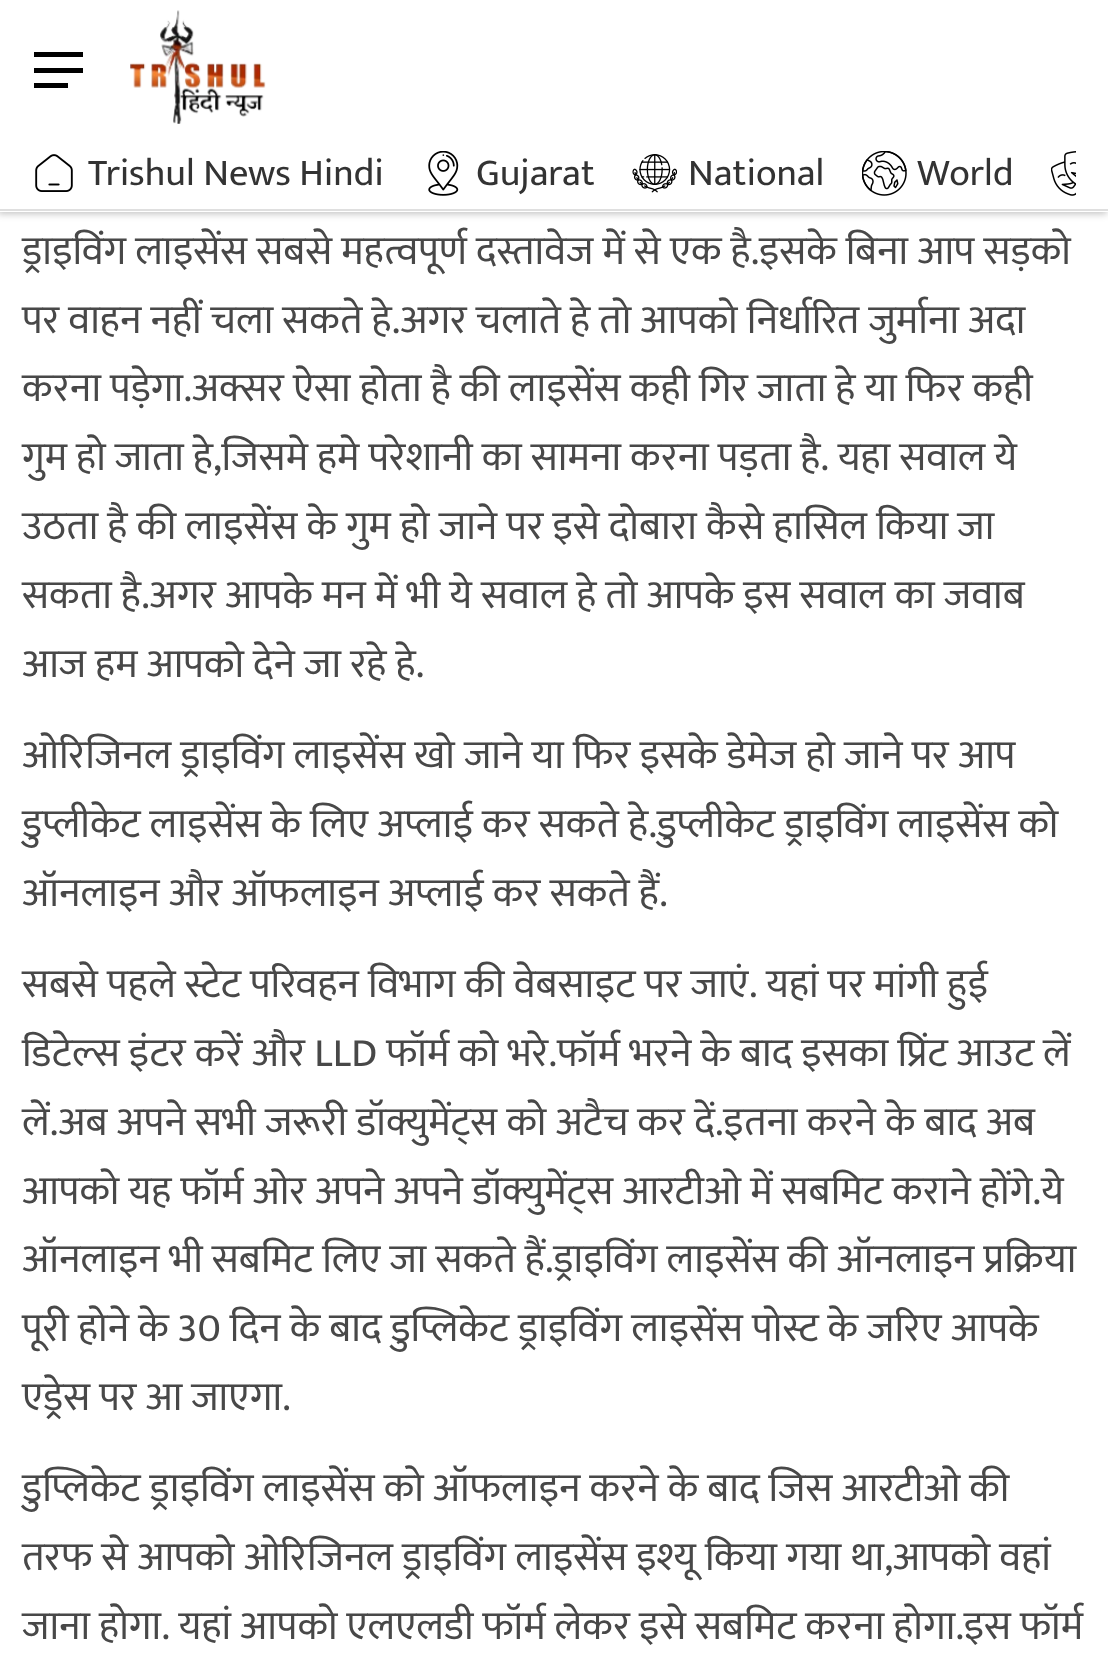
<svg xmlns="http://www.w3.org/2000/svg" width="1108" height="1677">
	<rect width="100%" height="100%" fill="#FFFFFF" />
	<rect x="-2" y="2" width="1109" height="212" fill="#000000" fill-opacity="0.23" filter="blur(3.5px)" />
	<rect x="0" y="0" width="1108" height="212" fill="#FFFFFF" />
	<rect x="0" y="209" width="1108" height="2" fill="#DFDFDF" />
	<rect x="34" y="68" width="49" height="5" fill="#000000" />
	<rect x="34" y="52" width="49" height="5" fill="#000000" />
	<rect x="34" y="83" width="34" height="5" fill="#000000" />
	<image x="130" y="10" width="136" height="114" href="assets/img1.png" />
	<image x="35" y="154" width="38" height="38" href="assets/img2.png" />
	<text x="88" y="185" font-family="Mukta" font-size="38.25" fill="#333333">Trishul News Hindi</text>
	<image x="428" y="151" width="31" height="45" href="assets/img3.png" />
	<text x="476" y="185" font-family="Mukta" font-size="38.25" fill="#333333">Gujarat</text>
	<image x="632" y="154" width="45" height="39" href="assets/img4.png" />
	<text x="688" y="185" font-family="Mukta" font-size="38.25" fill="#333333">National</text>
	<image x="862" y="151" width="45" height="45" href="assets/img5.png" />
	<text x="917" y="185" font-family="Mukta" font-size="38.25" fill="#333333">World</text>
	<image x="1051" y="151" width="25" height="45" href="assets/img6.png" />
	<g font-family="Mukta" font-size="40.5" fill="#484848">
		<text x="22" y="264">ड्राइविंग लाइसेंस सबसे महत्वपूर्ण दस्तावेज में से एक है.इसके बिना आप सड़को</text>
		<text x="22" y="333">पर वाहन नहीं चला सकते हे.अगर चलाते हे तो आपको निर्धारित जुर्माना अदा</text>
		<text x="22" y="401">करना पड़ेगा.अक्सर ऐसा होता है की लाइसेंस कही गिर जाता हे या फिर कही</text>
		<text x="22" y="470" word-spacing="-0.1">गुम हो जाता हे,जिसमे हमे परेशानी का सामना करना पड़ता है. यहा सवाल ये</text>
		<text x="22" y="539">उठता है की लाइसेंस के गुम हो जाने पर इसे दोबारा कैसे हासिल किया जा</text>
		<text x="22" y="608">सकता है.अगर आपके मन में भी ये सवाल हे तो आपके इस सवाल का जवाब</text>
		<text x="22" y="677">आज हम आपको देने जा रहे हे.</text>
		<text x="22" y="768">ओरिजिनल ड्राइविंग लाइसेंस खो जाने या फिर इसके डेमेज हो जाने पर आप</text>
		<text x="22" y="837">डुप्लीकेट लाइसेंस के लिए अप्लाई कर सकते हे.डुप्लीकेट ड्राइविंग लाइसेंस को</text>
		<text x="22" y="906">ऑनलाइन और ऑफलाइन अप्लाई कर सकते हैं.</text>
		<text x="22" y="997" word-spacing="-0.1">सबसे पहले स्टेट परिवहन विभाग की वेबसाइट पर जाएं. यहां पर मांगी हुई</text>
		<text x="22" y="1066">डिटेल्स इंटर करें और LLD फॉर्म को भरे.फॉर्म भरने के बाद इसका प्रिंट आउट लें</text>
		<text x="22" y="1135">लें.अब अपने सभी जरूरी डॉक्युमेंट्स को अटैच कर दें.इतना करने के बाद अब</text>
		<text x="22" y="1204">आपको यह फॉर्म ओर अपने अपने डॉक्युमेंट्स आरटीओ में सबमिट कराने होंगे.ये</text>
		<text x="22" y="1272">ऑनलाइन भी सबमिट लिए जा सकते हैं.ड्राइविंग लाइसेंस की ऑनलाइन प्रक्रिया</text>
		<text x="22" y="1341">पूरी होने के 30 दिन के बाद डुप्लिकेट ड्राइविंग लाइसेंस पोस्ट के जरिए आपके</text>
		<text x="22" y="1410">एड्रेस पर आ जाएगा.</text>
		<text x="22" y="1501">डुप्लिकेट ड्राइविंग लाइसेंस को ऑफलाइन करने के बाद जिस आरटीओ की</text>
		<text x="22" y="1570">तरफ से आपको ओरिजिनल ड्राइविंग लाइसेंस इश्यू किया गया था,आपको वहां</text>
		<text x="22" y="1639" word-spacing="-0.1">जाना होगा. यहां आपको एलएलडी फॉर्म लेकर इसे सबमिट करना होगा.इस फॉर्म</text>
	</g>
</svg>
